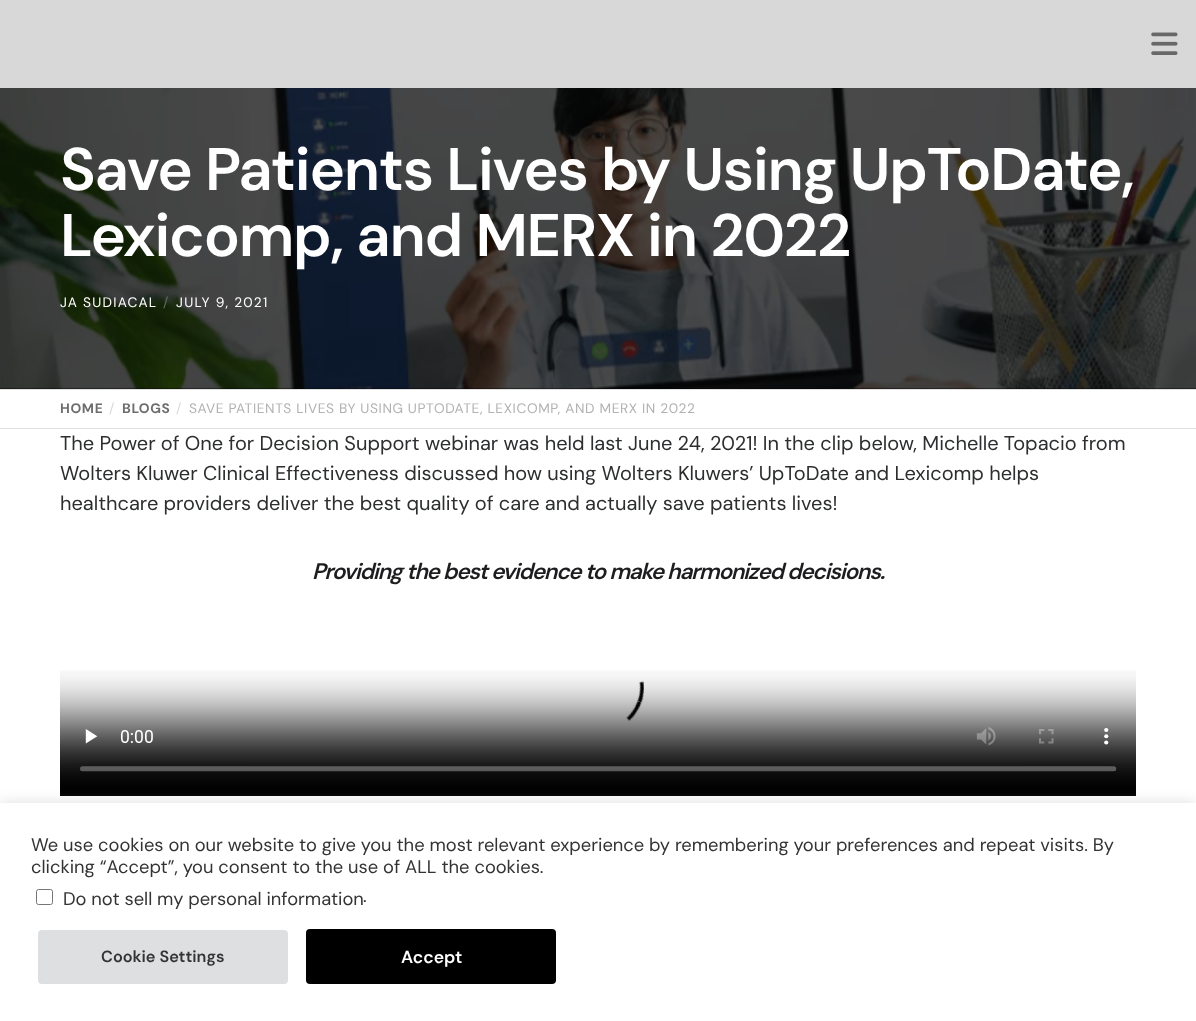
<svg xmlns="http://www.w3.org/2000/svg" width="1196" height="1021">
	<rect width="100%" height="100%" fill="#000000" />
	<rect x="0" y="0" width="1196" height="88" fill="#D8D8D9" />
	<image x="1151" y="32" width="27" height="23" href="assets/img1.png" />
	<image x="0" y="88" width="1196" height="301" href="assets/img2.png" />
	<g font-family="DM Sans" font-size="60" font-weight="600" letter-spacing="-1.25" fill="#FFFFFF">
		<text x="60" y="190">Save Patients Lives by Using UpToDate,</text>
		<text x="60" y="256">Lexicomp, and MERX in 2022</text>
	</g>
	<text x="60" y="307" font-family="DM Sans" font-size="13.75" letter-spacing="1.25" fill="#FFFFFF">JA SUDIACAL</text>
	<text x="163" y="307" font-family="DM Sans" font-size="13.75" letter-spacing="1.25" fill="#636C5E">/</text>
	<text x="176" y="307" font-family="DM Sans" font-size="13.75" letter-spacing="1.25" fill="#FFFFFF">JULY 9, 2021</text>
	<rect x="0" y="390" width="1196" height="38" fill="#FFFFFF" />
	<rect x="0" y="389" width="1196" height="1" fill="#E0E0E0" />
	<rect x="0" y="428" width="1196" height="1" fill="#E0E0E0" />
	<text x="60" y="413" font-family="DM Sans" font-size="13.75" font-weight="700" letter-spacing="0.62" fill="#6E6E6E">HOME</text>
	<text x="109" y="413" font-family="DM Sans" font-size="13.75" letter-spacing="0.62" fill="#D9D9D9">/</text>
	<text x="122" y="413" font-family="DM Sans" font-size="13.75" font-weight="700" letter-spacing="0.62" fill="#6E6E6E">BLOGS</text>
	<text x="176" y="413" font-family="DM Sans" font-size="13.75" letter-spacing="0.62" fill="#D9D9D9">/</text>
	<text x="189" y="413" font-family="DM Sans" font-size="13.75" letter-spacing="0.62" fill="#B2B2B2">SAVE PATIENTS LIVES BY USING UPTODATE, LEXICOMP, AND MERX IN 2022</text>
	<rect x="0" y="429" width="1196" height="374" fill="#FFFFFF" />
	<g font-family="DM Sans" font-size="20" fill="#2C2E2F">
		<text x="60" y="450">The Power of One for Decision Support webinar was held last June 24, 2021! In the clip below, Michelle Topacio from</text>
		<text x="60" y="480">Wolters Kluwer Clinical Effectiveness discussed how using Wolters Kluwers’ UpToDate and Lexicomp helps</text>
		<text x="60" y="510">healthcare providers deliver the best quality of care and actually save patients lives!</text>
	</g>
	<text x="312" y="579" font-family="DM Sans" font-size="22.5" font-weight="600" font-style="italic" letter-spacing="-1.25" fill="#1D1D1F">Providing the best evidence to make harmonized decisions.</text>
	<image x="60" y="670" width="1076" height="126" href="assets/img3.png" />
	<rect x="0" y="801" width="1196" height="219" fill="#ACABAB" fill-opacity="0.3" filter="blur(6px)" />
	<rect x="0" y="803" width="1196" height="218" fill="#FFFFFF" />
	<g font-family="DM Sans" font-size="18.33" fill="#333333">
		<text x="31" y="851">We use cookies on our website to give you the most relevant experience by remembering your preferences and repeat visits. By</text>
		<text x="31" y="873">clicking “Accept”, you consent to the use of ALL the cookies.</text>
	</g>
	<rect x="36.5" y="889.5" width="16" height="15" rx="2" fill="none" stroke="#767676" />
	<g font-family="DM Sans" font-size="18.33" fill="#333333">
		<text x="63" y="905">Do not sell my personal information</text>
		<text x="363" y="902">.</text>
	</g>
	<rect x="38" y="930" width="250" height="54" rx="4" fill="#DEDFE0" />
	<text x="101" y="962" font-family="DM Sans" font-size="16.25" font-weight="600" fill="#333333">Cookie Settings</text>
	<rect x="306" y="929" width="250" height="55" rx="4" fill="#000000" />
	<text x="401" y="963" font-family="DM Sans" font-size="17.5" font-weight="600" fill="#FFFFFF">Accept</text>
</svg>
